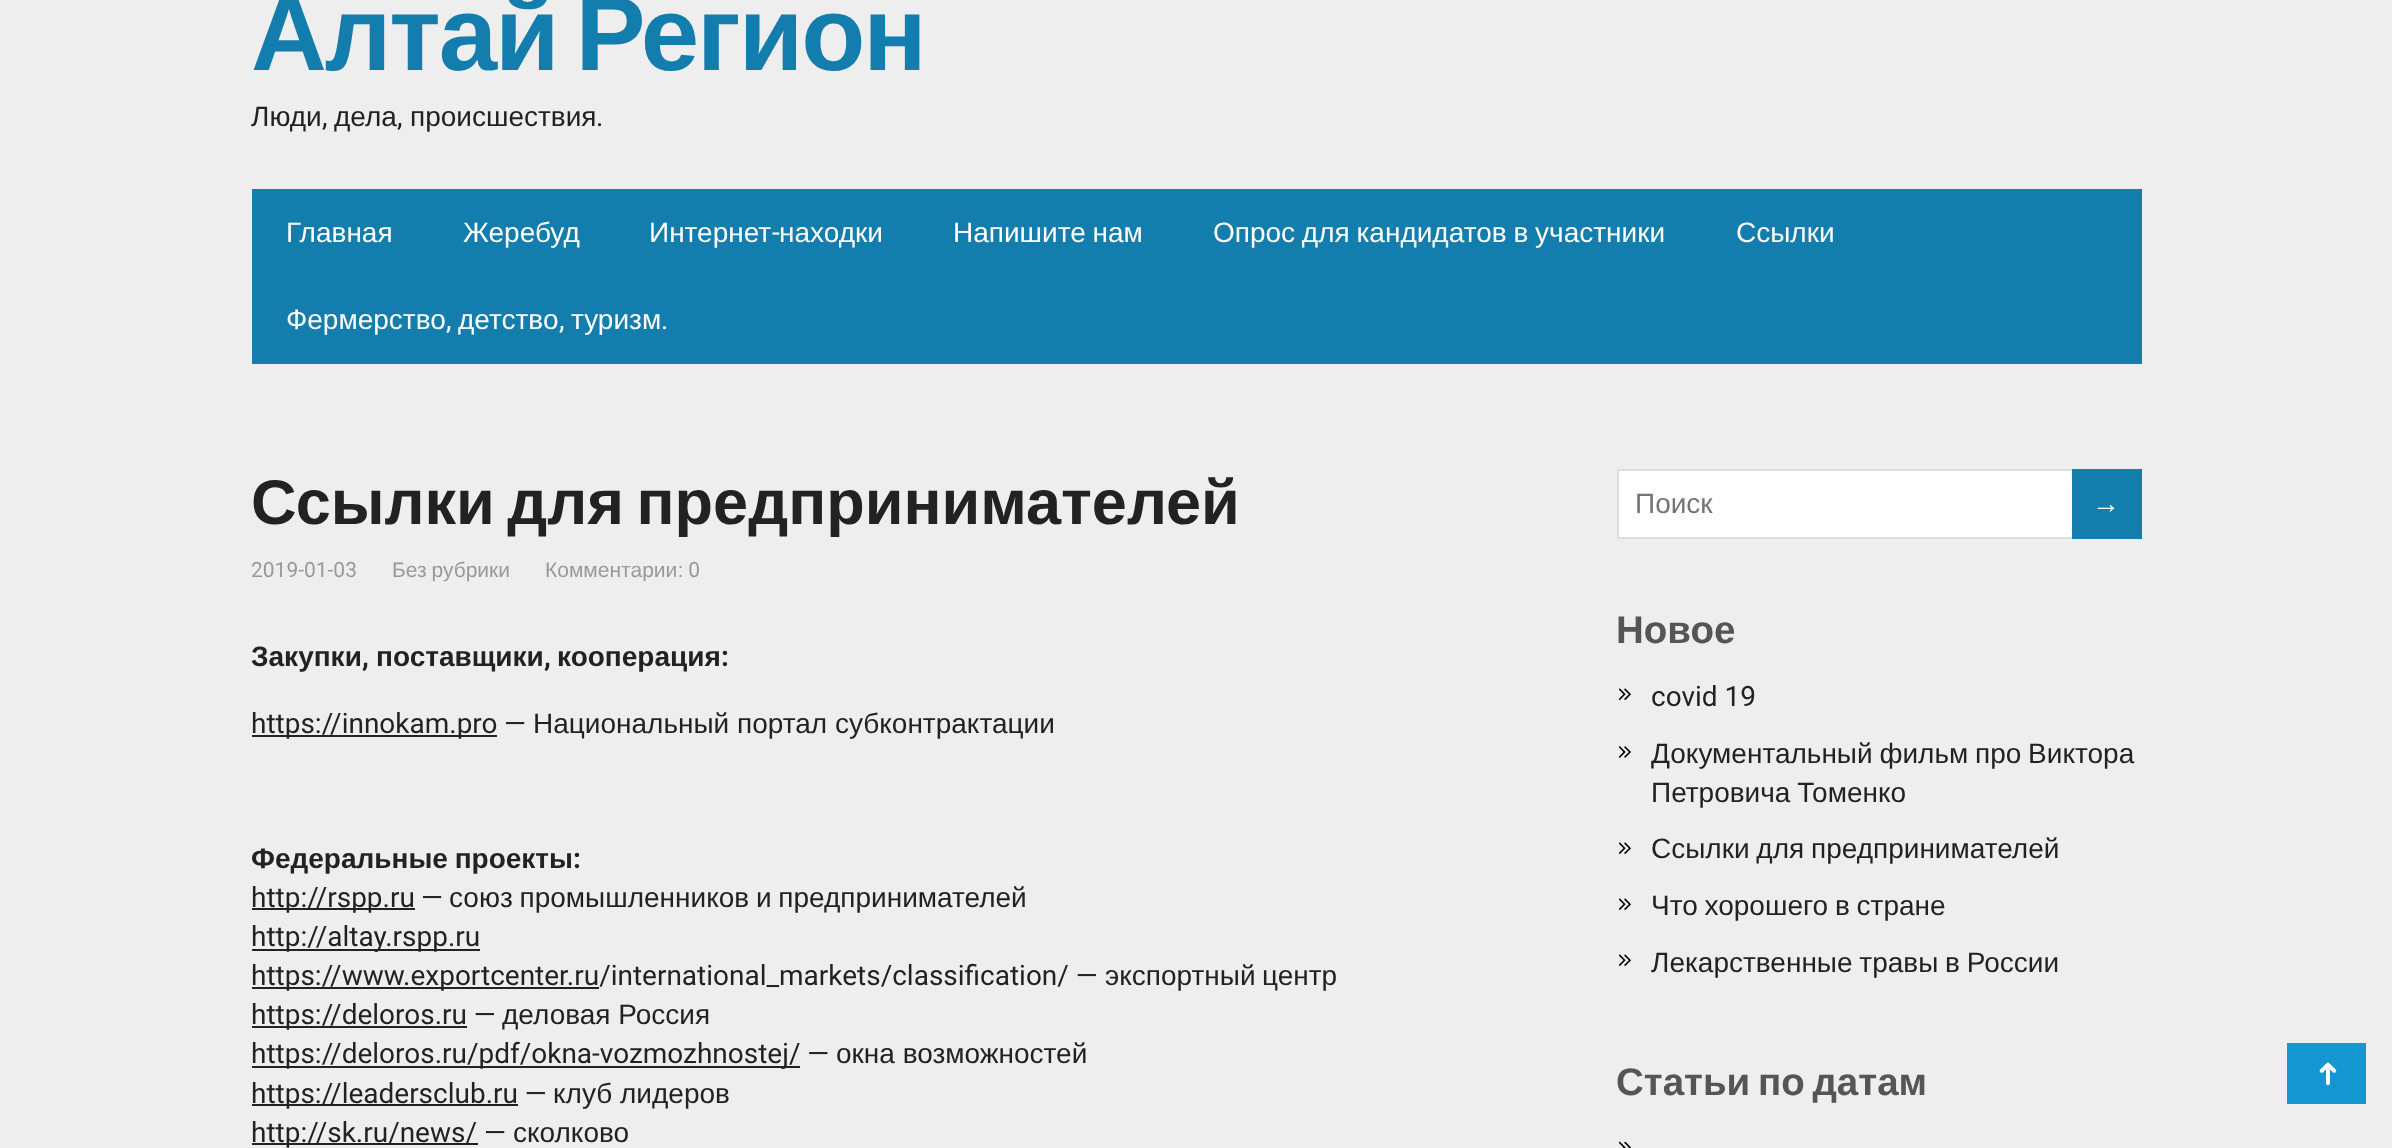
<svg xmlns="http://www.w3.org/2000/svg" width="2392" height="1148">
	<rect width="100%" height="100%" fill="#EEEEEE" />
	<text x="251" y="70" word-spacing="-9" font-family="Liberation Sans" font-size="105" font-weight="700" letter-spacing="-2.1" fill="#137DAD">Алтай Регион</text>
	<text x="251" y="126" font-family="Liberation Sans" font-size="28" fill="#222222">Люди</text>
	<text x="322" y="126" font-family="Roboto" font-size="28" fill="#222222">,</text>
	<text x="334" y="126" font-family="Liberation Sans" font-size="28" fill="#222222">дела</text>
	<text x="397" y="126" font-family="Roboto" font-size="28" fill="#222222">,</text>
	<text x="410" y="126" font-family="Liberation Sans" font-size="28" fill="#222222">происшествия</text>
	<text x="596" y="126" font-family="Roboto" font-size="28" fill="#222222">.</text>
	<rect x="252" y="189" width="1890" height="175" fill="#137DAD" />
	<g font-family="Liberation Sans" font-size="28" fill="#FFFFFF">
		<text x="286" y="242">Главная</text>
		<text x="463" y="242">Жеребуд</text>
		<text x="649" y="242">Интернет находки</text>
	</g>
	<text x="772" y="242" font-family="Roboto" font-size="28" fill="#FFFFFF">-</text>
	<g font-family="Liberation Sans" font-size="28" fill="#FFFFFF">
		<text x="953" y="242" word-spacing="-1">Напишите нам</text>
		<text x="1213" y="242" word-spacing="-1">Опрос для кандидатов в участники</text>
		<text x="1736" y="242">Ссылки</text>
		<text x="286" y="329">Фермерство</text>
	</g>
	<text x="446" y="329" font-family="Roboto" font-size="28" fill="#FFFFFF">,</text>
	<text x="458" y="329" font-family="Liberation Sans" font-size="28" fill="#FFFFFF">детство</text>
	<text x="559" y="329" font-family="Roboto" font-size="28" fill="#FFFFFF">,</text>
	<text x="571" y="329" font-family="Liberation Sans" font-size="28" fill="#FFFFFF">туризм</text>
	<text x="661" y="329" font-family="Roboto" font-size="28" fill="#FFFFFF">.</text>
	<text x="251" y="524" word-spacing="-5" font-family="Liberation Sans" font-size="63" font-weight="700" fill="#222222">Ссылки для предпринимателей</text>
	<text x="251" y="577" font-family="Roboto" font-size="21" fill="#999999">2019-01-03</text>
	<g font-family="Liberation Sans" font-size="21" fill="#999999">
		<text x="392" y="577" word-spacing="-1">Без рубрики</text>
		<text x="545" y="577">Комментарии</text>
	</g>
	<text x="678" y="577" font-family="Roboto" font-size="21" fill="#999999">: 0</text>
	<text x="251" y="666" font-family="Liberation Sans" font-size="28" font-weight="700" fill="#222222">Закупки</text>
	<text x="362" y="666" font-family="Roboto" font-size="28" font-weight="700" fill="#222222">,</text>
	<text x="376" y="666" font-family="Liberation Sans" font-size="28" font-weight="700" fill="#222222">поставщики</text>
	<text x="544" y="666" font-family="Roboto" font-size="28" font-weight="700" fill="#222222">,</text>
	<text x="557" y="666" font-family="Liberation Sans" font-size="28" font-weight="700" fill="#222222">кооперация</text>
	<text x="721" y="666" font-family="Roboto" font-size="28" font-weight="700" fill="#222222">:</text>
	<rect x="252" y="735" width="245" height="2" fill="#222222" />
	<g font-family="Roboto" font-size="28" fill="#222222">
		<text x="251" y="733">https://innokam.pro</text>
		<text x="504" y="733">—</text>
	</g>
	<text x="533" y="733" font-family="Liberation Sans" font-size="28" fill="#222222">Национальный портал субконтрактации</text>
	<text x="251" y="868" word-spacing="-1" font-family="Liberation Sans" font-size="28" font-weight="700" fill="#222222">Федеральные проекты</text>
	<text x="573" y="868" font-family="Roboto" font-size="28" font-weight="700" fill="#222222">:</text>
	<rect x="252" y="908" width="163" height="2" fill="#222222" />
	<g font-family="Roboto" font-size="28" fill="#222222">
		<text x="251" y="907">http://rspp.ru</text>
		<text x="421" y="907">—</text>
	</g>
	<text x="449" y="907" word-spacing="-1" font-family="Liberation Sans" font-size="28" fill="#222222">союз промышленников и предпринимателей</text>
	<rect x="252" y="949" width="228" height="2" fill="#222222" />
	<text x="251" y="946" font-family="Roboto" font-size="28" fill="#222222">http://altay.rspp.ru</text>
	<rect x="252" y="987" width="347" height="2" fill="#222222" />
	<text x="251" y="985" font-family="Roboto" font-size="28" fill="#222222">https://www.exportcenter.ru/international_markets/classification/ —</text>
	<g font-family="Liberation Sans" font-size="28" fill="#222222">
		<text x="1105" y="985">экспортный</text>
		<text x="1262" y="985">центр</text>
	</g>
	<rect x="252" y="1026" width="215" height="2" fill="#222222" />
	<text x="251" y="1024" font-family="Roboto" font-size="28" fill="#222222">https://deloros.ru —</text>
	<text x="502" y="1024" font-family="Liberation Sans" font-size="28" fill="#222222">деловая Россия</text>
	<rect x="252" y="1066" width="548" height="2" fill="#222222" />
	<text x="251" y="1063" font-family="Roboto" font-size="28" fill="#222222">https://deloros.ru/pdf/okna-vozmozhnostej/ —</text>
	<text x="836" y="1063" font-family="Liberation Sans" font-size="28" fill="#222222">окна возможностей</text>
	<rect x="252" y="1104" width="266" height="2" fill="#222222" />
	<text x="251" y="1103" font-family="Roboto" font-size="28" fill="#222222">https://leadersclub.ru —</text>
	<text x="553" y="1103" font-family="Liberation Sans" font-size="28" fill="#222222">клуб лидеров</text>
	<rect x="252" y="1143" width="226" height="2" fill="#222222" />
	<text x="251" y="1142" font-family="Roboto" font-size="28" fill="#222222">http://sk.ru/news/ —</text>
	<text x="513" y="1142" font-family="Liberation Sans" font-size="28" fill="#222222">сколково</text>
	<rect x="1619" y="471" width="453" height="66" fill="#FFFFFF" />
	<rect x="1618" y="470" width="509" height="68" fill="none" stroke="#DDDDDD" stroke-width="2" />
	<text x="1635" y="513" font-family="Liberation Sans" font-size="28" fill="#757575">Поиск</text>
	<rect x="2072" y="469" width="70" height="70" fill="#137DAD" />
	<text x="2092" y="513" font-family="Liberation Sans" font-size="28" fill="#FFFFFF">→</text>
	<text x="1616" y="643" font-family="Liberation Sans" font-size="38.5" font-weight="700" fill="#555555">Новое</text>
	<image x="1619" y="688" width="12" height="12" href="assets/img1.png" />
	<text x="1651" y="706" font-family="Roboto" font-size="28" fill="#222222">covid 19</text>
	<image x="1619" y="746" width="12" height="12" href="assets/img2.png" />
	<g font-family="Liberation Sans" font-size="28" fill="#222222">
		<text x="1651" y="763" word-spacing="-1">Документальный фильм про Виктора</text>
		<text x="1651" y="802" word-spacing="-1">Петровича Томенко</text>
	</g>
	<image x="1619" y="842" width="12" height="12" href="assets/img1.png" />
	<text x="1651" y="858" word-spacing="-1" font-family="Liberation Sans" font-size="28" fill="#222222">Ссылки для предпринимателей</text>
	<image x="1619" y="898" width="12" height="12" href="assets/img1.png" />
	<text x="1651" y="915" word-spacing="-1" font-family="Liberation Sans" font-size="28" fill="#222222">Что хорошего в стране</text>
	<image x="1619" y="954" width="12" height="12" href="assets/img3.png" />
	<text x="1651" y="972" word-spacing="-1" font-family="Liberation Sans" font-size="28" fill="#222222">Лекарственные травы в России</text>
	<text x="1616" y="1095" word-spacing="-3" font-family="Liberation Sans" font-size="38.5" font-weight="700" fill="#555555">Статьи по датам</text>
	<image x="1619" y="1141" width="12" height="7" href="assets/img4.png" />
	<rect x="2287" y="1043" width="79" height="61" fill="#1496D1" />
	<text x="2338" y="1087" transform="rotate(-90 2338 1087)" font-family="DejaVu Sans" font-size="32" fill="#FFFFFF">➜</text>
</svg>
